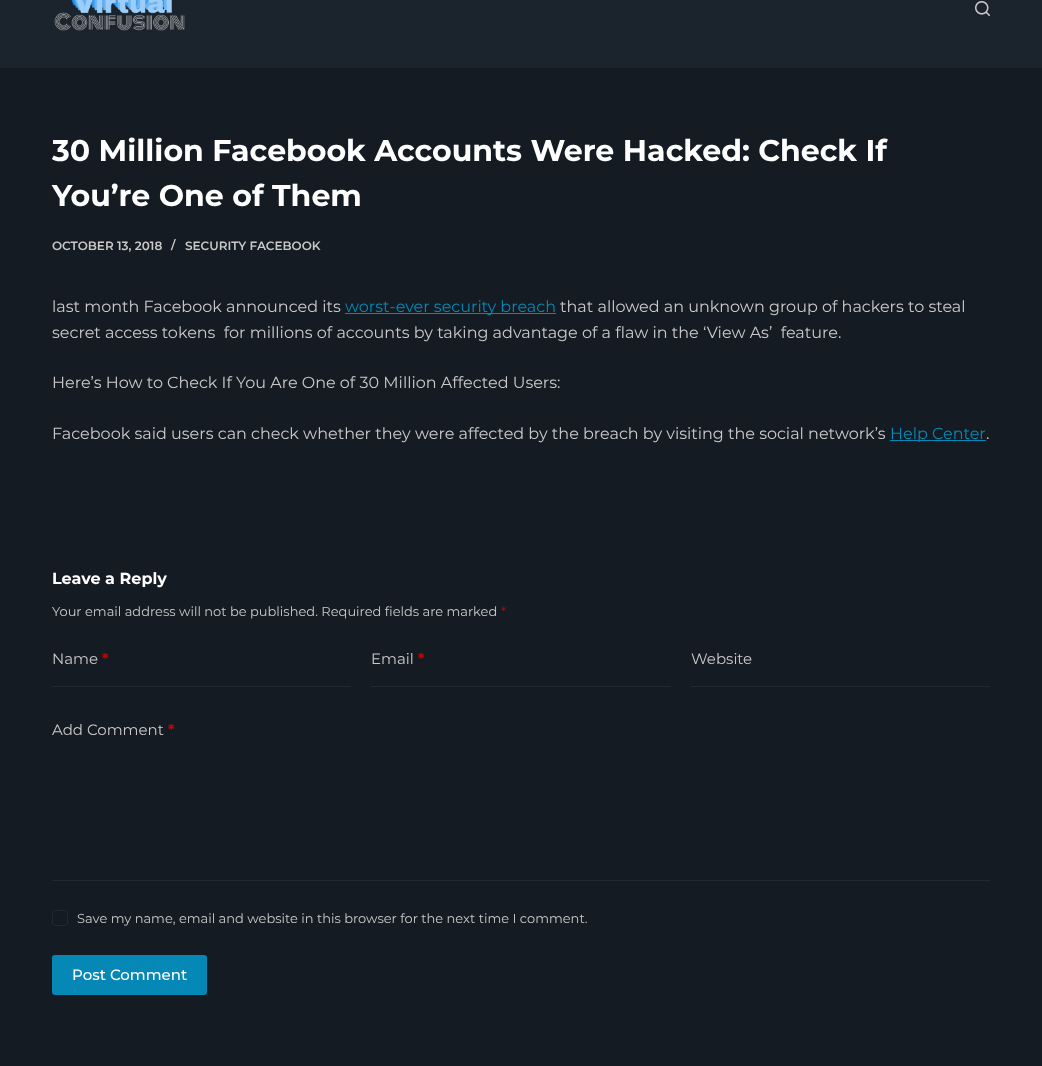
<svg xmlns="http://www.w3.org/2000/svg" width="1042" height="1066">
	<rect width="100%" height="100%" fill="#141B22" />
	<rect x="0" y="0" width="1042" height="68" fill="#1B242C" />
	<image x="54" y="0" width="131" height="31" href="assets/img1.png" />
	<image x="975" y="1" width="15" height="15" href="assets/img2.png" />
	<g font-family="Montserrat" font-size="30" font-weight="700" fill="#FFFFFF">
		<text x="52" y="161">30 Million Facebook Accounts Were Hacked: Check If</text>
		<text x="52" y="206">You’re One of Them</text>
	</g>
	<g font-family="Montserrat" font-size="12" font-weight="600" fill="#C9C9C9">
		<text x="52" y="250">OCTOBER 13, 2018</text>
		<text x="171" y="249">/</text>
		<text x="185" y="250">SECURITY FACEBOOK</text>
	</g>
	<text x="52" y="312" font-family="Montserrat" font-size="16" fill="#C9C9C9">last month Facebook announced its</text>
	<rect x="345" y="313" width="211" height="1" fill="#0688B7" />
	<text x="345" y="312" font-family="Montserrat" font-size="16" fill="#0688B7">worst-ever security breach</text>
	<g font-family="Montserrat" font-size="16" fill="#C9C9C9">
		<text x="560" y="312">that allowed an unknown group of hackers to steal</text>
		<text x="52" y="338" xml:space="preserve">secret access tokens  for millions of accounts by taking advantage of a flaw in the ‘View As’  feature.</text>
		<text x="52" y="388">Here’s How to Check If You Are One of 30 Million Affected Users:</text>
		<text x="52" y="439">Facebook said users can check whether they were affected by the breach by visiting the social network’s</text>
	</g>
	<rect x="890" y="440" width="96" height="1" fill="#0688B7" />
	<text x="890" y="439" font-family="Montserrat" font-size="16" fill="#0688B7">Help Center</text>
	<text x="986" y="439" font-family="Montserrat" font-size="16" fill="#C9C9C9">.</text>
	<text x="52" y="584" font-family="Montserrat" font-size="16" font-weight="700" fill="#FFFFFF">Leave a Reply</text>
	<text x="52" y="616" font-family="Montserrat" font-size="13" fill="#C9C9C9">Your email address will not be published. Required fields are marked</text>
	<text x="501" y="616" font-family="Montserrat" font-size="13" fill="#CC0000">*</text>
	<text x="52" y="664" font-family="Montserrat" font-size="15" fill="#C9C9C9">Name</text>
	<text x="102" y="664" font-family="Montserrat" font-size="15" font-weight="700" fill="#CC0000">*</text>
	<rect x="52" y="686" width="299" height="1" fill="#1E2933" />
	<text x="371" y="664" font-family="Montserrat" font-size="15" fill="#C9C9C9">Email</text>
	<text x="418" y="664" font-family="Montserrat" font-size="15" font-weight="700" fill="#CC0000">*</text>
	<rect x="371" y="686" width="300" height="1" fill="#1E2933" />
	<text x="691" y="664" font-family="Montserrat" font-size="15" fill="#C9C9C9">Website</text>
	<rect x="691" y="686" width="299" height="1" fill="#1E2933" />
	<text x="52" y="735" font-family="Montserrat" font-size="15" fill="#C9C9C9">Add Comment</text>
	<text x="168" y="735" font-family="Montserrat" font-size="15" font-weight="700" fill="#CC0000">*</text>
	<rect x="52" y="880" width="938" height="1" fill="#1E2933" />
	<rect x="52.5" y="910.5" width="15" height="15" rx="2.5" fill="none" stroke="#1E2933" />
	<text x="77" y="923" font-family="Montserrat" font-size="13" fill="#C9C9C9">Save my name, email and website in this browser for the next time I comment.</text>
	<rect x="52" y="955" width="155" height="40" rx="3" fill="#0688B7" />
	<text x="72" y="980" font-family="Montserrat" font-size="15" font-weight="500" fill="#FFFFFF">Post Comment</text>
</svg>
